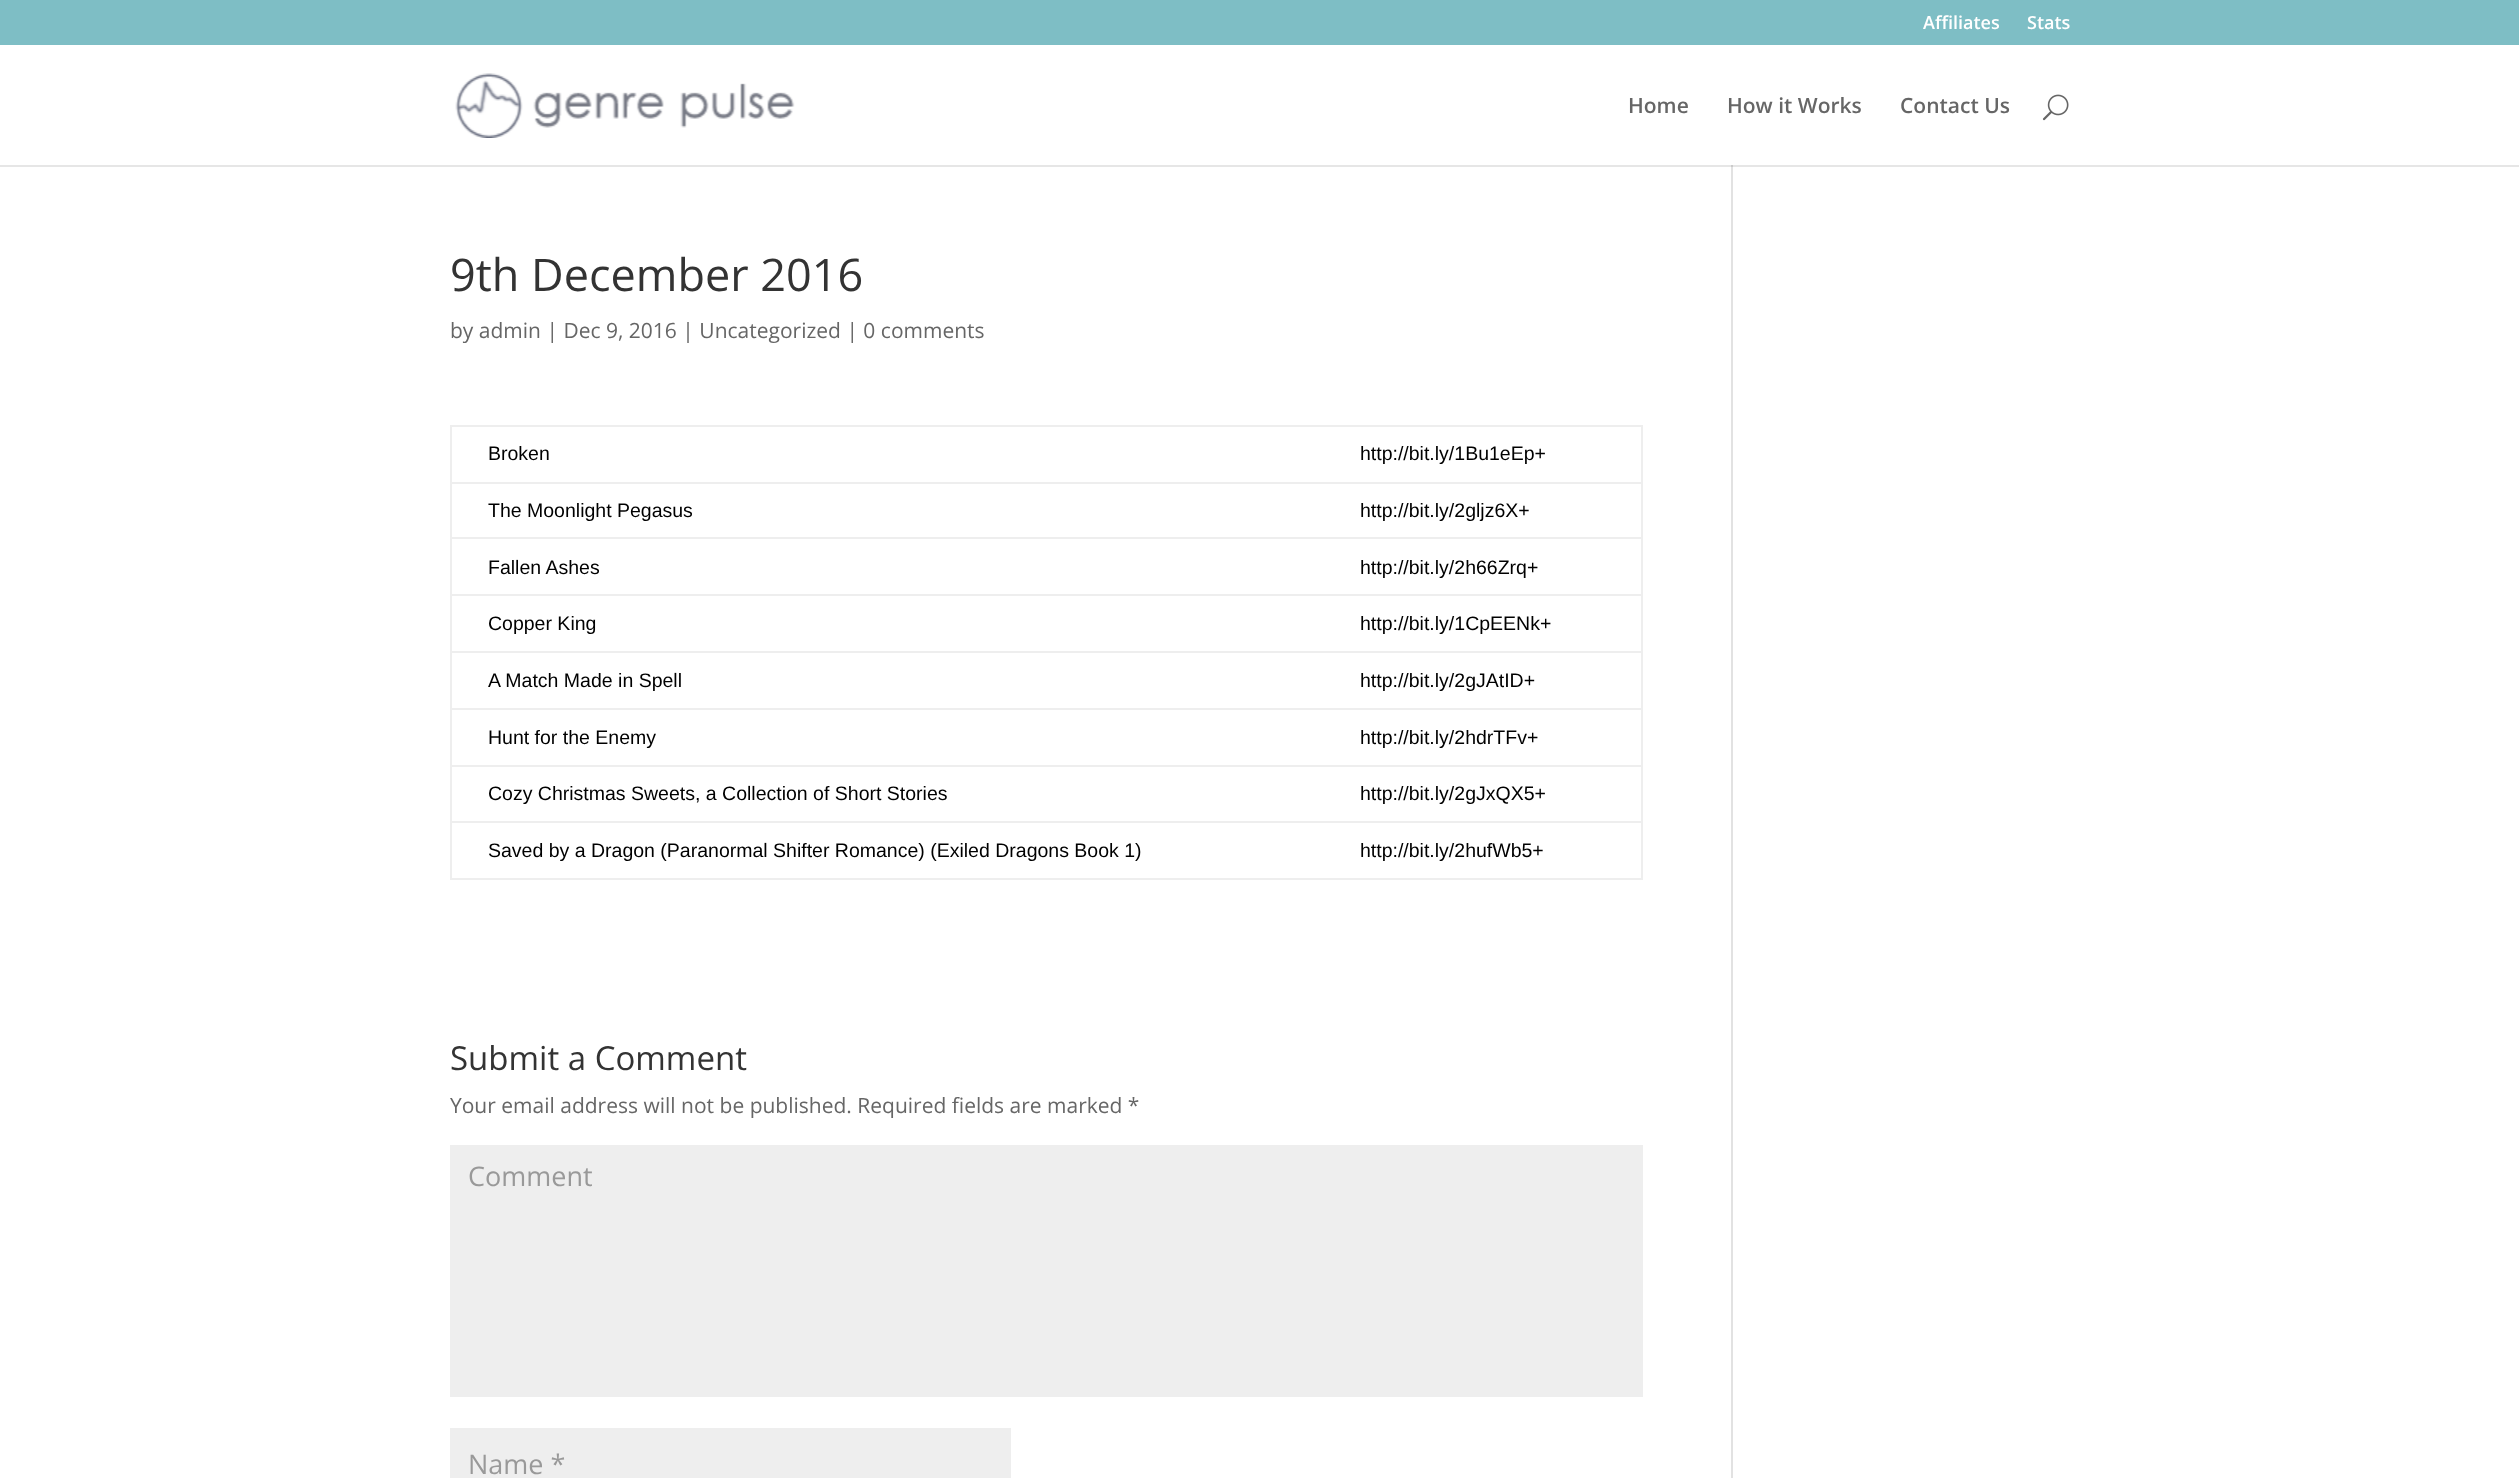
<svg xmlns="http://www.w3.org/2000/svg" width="2519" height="1478">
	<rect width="100%" height="100%" fill="#FFFFFF" />
	<rect x="0" y="165" width="2519" height="2" fill="#E6E6E6" />
	<rect x="0" y="0" width="2519" height="45" fill="#7EBEC5" />
	<g font-family="Open Sans" font-size="18" font-weight="600" fill="#FFFFFF">
		<text x="1923" y="29">Affiliates</text>
		<text x="2027" y="29">Stats</text>
	</g>
	<image x="455" y="73" width="340" height="65" href="assets/img1.png" />
	<g font-family="Open Sans" font-size="21" font-weight="600" fill="#666666">
		<text x="1628" y="113">Home</text>
		<text x="1727" y="113">How it Works</text>
		<text x="1900" y="113">Contact Us</text>
	</g>
	<image x="2042" y="94" width="27" height="27" href="assets/img2.png" />
	<text x="450" y="291" font-family="Open Sans" font-size="45" fill="#333333">9th December 2016</text>
	<text x="450" y="338" font-family="Open Sans" font-size="21" fill="#666666">by admin | Dec 9, 2016 | Uncategorized | 0 comments</text>
	<rect x="450" y="425" width="1193" height="2" fill="#EEEEEE" />
	<rect x="1641" y="425" width="2" height="454" fill="#EEEEEE" />
	<rect x="450" y="878" width="1193" height="2" fill="#EEEEEE" />
	<rect x="450" y="425" width="2" height="454" fill="#EEEEEE" />
	<g font-family="Liberation Sans" font-size="19.5" fill="#000000">
		<text x="488" y="460">Broken</text>
		<text x="1360" y="460">http://bit.ly/1Bu1eEp+</text>
		<text x="488" y="517">The Moonlight Pegasus</text>
	</g>
	<rect x="450" y="482" width="1193" height="2" fill="#EEEEEE" />
	<g font-family="Liberation Sans" font-size="19.5" fill="#000000">
		<text x="1360" y="517">http://bit.ly/2gljz6X+</text>
		<text x="488" y="574">Fallen Ashes</text>
	</g>
	<rect x="450" y="537" width="1193" height="2" fill="#EEEEEE" />
	<g font-family="Liberation Sans" font-size="19.5" fill="#000000">
		<text x="1360" y="574">http://bit.ly/2h66Zrq+</text>
		<text x="488" y="630">Copper King</text>
	</g>
	<rect x="450" y="594" width="1193" height="2" fill="#EEEEEE" />
	<g font-family="Liberation Sans" font-size="19.5" fill="#000000">
		<text x="1360" y="630">http://bit.ly/1CpEENk+</text>
		<text x="488" y="687">A Match Made in Spell</text>
	</g>
	<rect x="450" y="651" width="1193" height="2" fill="#EEEEEE" />
	<g font-family="Liberation Sans" font-size="19.5" fill="#000000">
		<text x="1360" y="687">http://bit.ly/2gJAtID+</text>
		<text x="488" y="744">Hunt for the Enemy</text>
	</g>
	<rect x="450" y="708" width="1193" height="2" fill="#EEEEEE" />
	<g font-family="Liberation Sans" font-size="19.5" fill="#000000">
		<text x="1360" y="744">http://bit.ly/2hdrTFv+</text>
		<text x="488" y="800">Cozy Christmas Sweets, a Collection of Short Stories</text>
	</g>
	<rect x="450" y="765" width="1193" height="2" fill="#EEEEEE" />
	<g font-family="Liberation Sans" font-size="19.5" fill="#000000">
		<text x="1360" y="800">http://bit.ly/2gJxQX5+</text>
		<text x="488" y="857">Saved by a Dragon (Paranormal Shifter Romance) (Exiled Dragons Book 1)</text>
	</g>
	<rect x="450" y="821" width="1193" height="2" fill="#EEEEEE" />
	<text x="1360" y="857" font-family="Liberation Sans" font-size="19.5" fill="#000000">http://bit.ly/2hufWb5+</text>
	<text x="450" y="1070" font-family="Open Sans" font-size="33" fill="#333333">Submit a Comment</text>
	<text x="450" y="1113" font-family="Open Sans" font-size="21" fill="#666666">Your email address will not be published. Required fields are marked *</text>
	<rect x="450" y="1145" width="1193" height="252" fill="#EEEEEE" />
	<text x="468" y="1186" font-family="Open Sans" font-size="27" fill="#999999">Comment</text>
	<rect x="450" y="1428" width="561" height="50" fill="#EEEEEE" />
	<text x="468" y="1474" font-family="Open Sans" font-size="27" fill="#999999">Name *</text>
	<rect x="1731" y="165" width="2" height="1313" fill="#E2E2E2" />
	<rect x="1731" y="165" width="2" height="2" fill="#CBCBCB" />
</svg>
